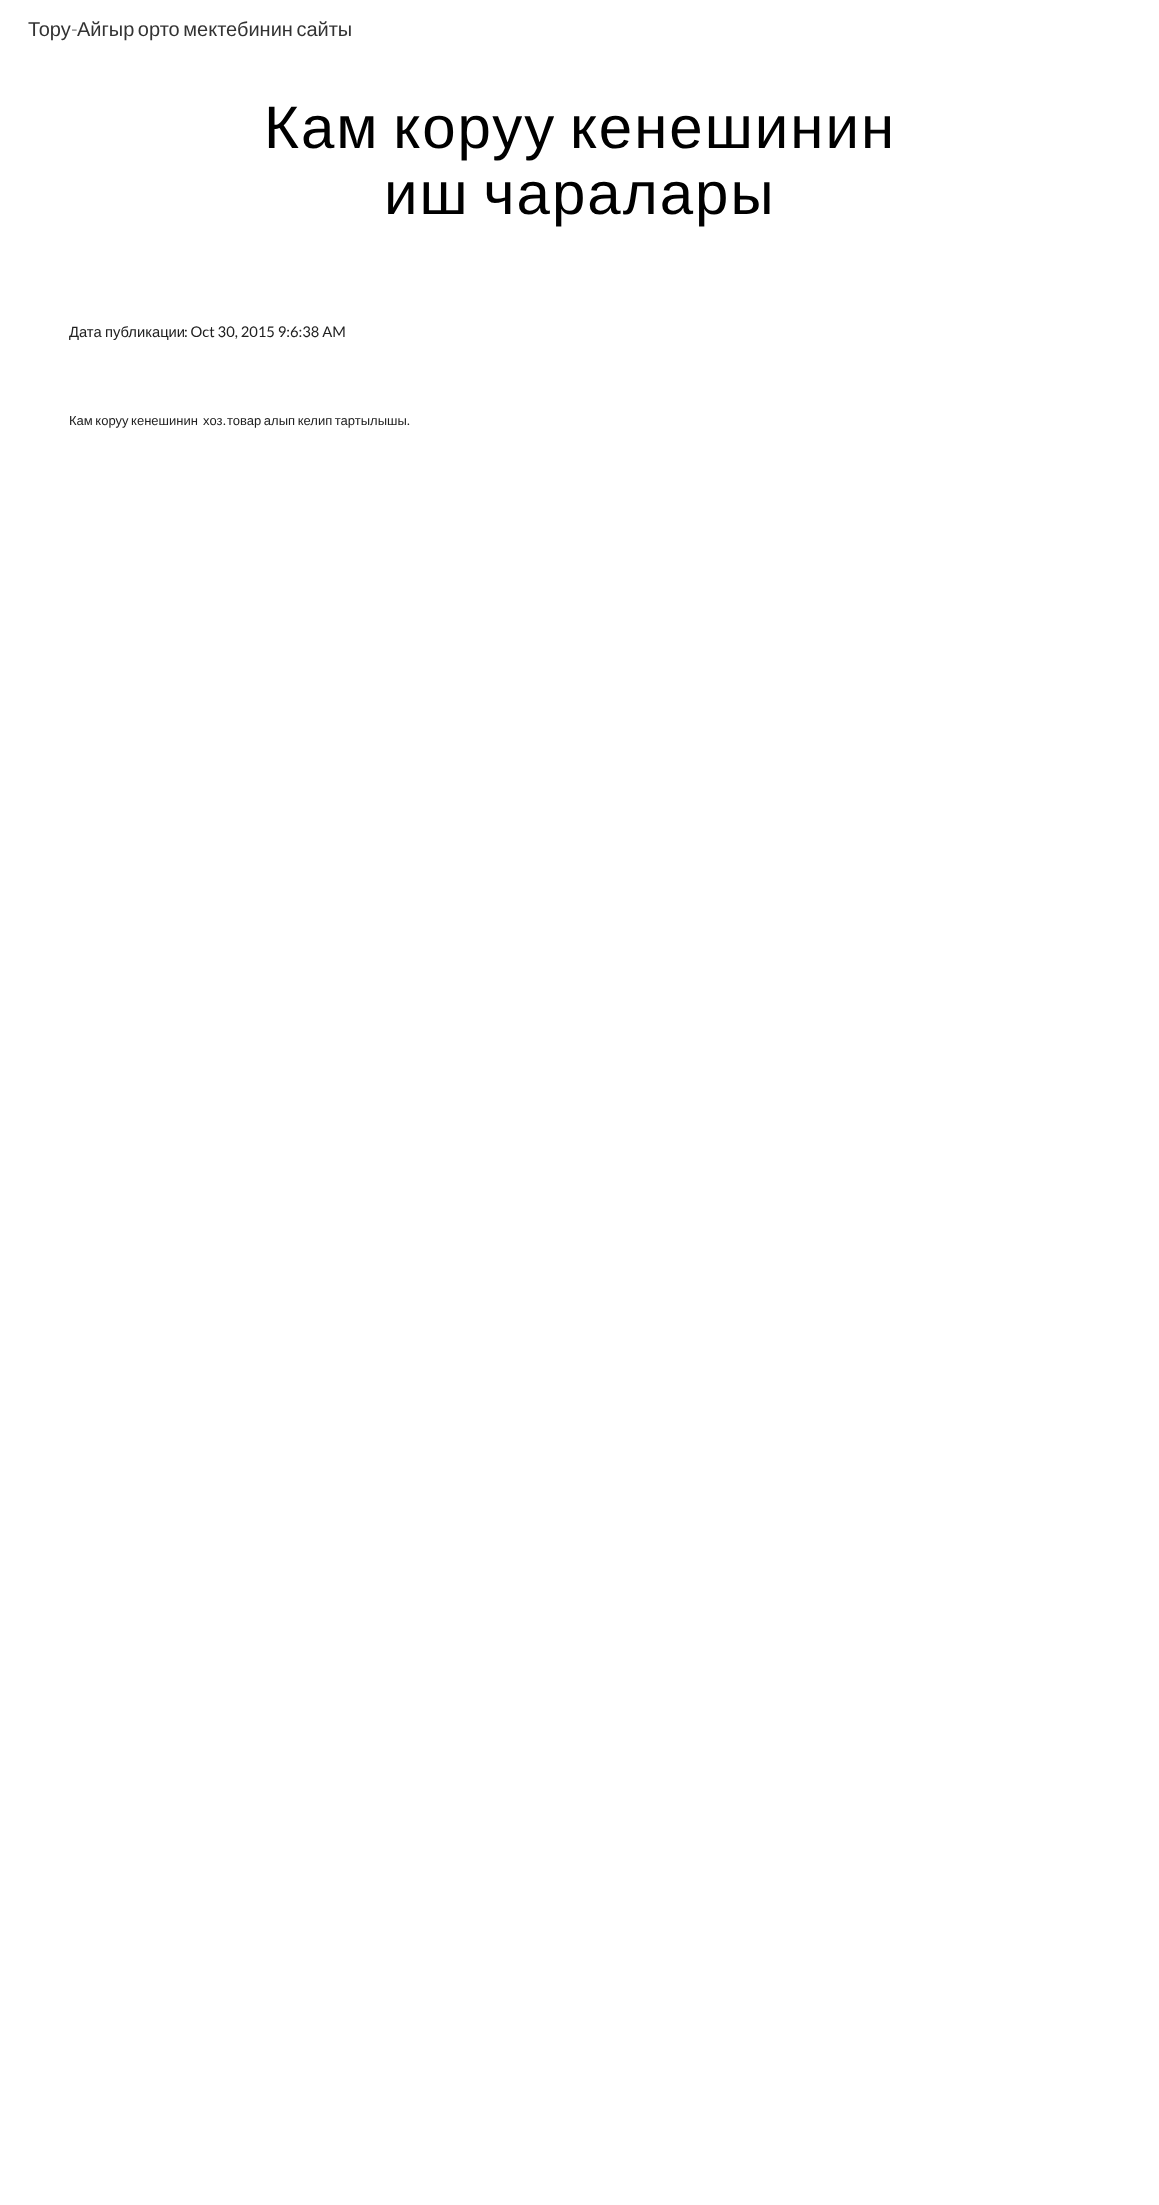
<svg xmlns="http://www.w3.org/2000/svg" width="1159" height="2205">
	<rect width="100%" height="100%" fill="#FFFFFF" />
	<text x="28" y="36" font-family="Liberation Sans" font-size="20" fill="#333333">Тору</text>
	<text x="71" y="36" font-family="Lato" font-size="20" font-weight="300" fill="#333333">-</text>
	<text x="77" y="36" word-spacing="-2" font-family="Liberation Sans" font-size="20" fill="#333333">Айгыр орто мектебинин сайты</text>
	<g font-family="Liberation Sans" font-size="60" letter-spacing="2" fill="#000000">
		<text x="264" y="148" word-spacing="-5">Кам коруу кенешинин</text>
		<text x="384" y="214" word-spacing="-5">иш чаралары</text>
	</g>
	<g font-family="Liberation Sans" font-size="14.75" fill="#212121">
		<text x="69" y="337">Дата</text>
		<text x="105" y="337">публикации</text>
	</g>
	<text x="184" y="337" font-family="Lato" font-size="14.75" fill="#212121">: Oct 30, 2015 9:6:38 AM</text>
	<text x="69" y="425" word-spacing="-1" font-family="Liberation Sans" font-size="13" fill="#212121" xml:space="preserve">Кам коруу кенешинин  хоз</text>
	<text x="223" y="425" font-family="Lato" font-size="13" fill="#212121">.</text>
	<text x="227" y="425" word-spacing="-1" font-family="Liberation Sans" font-size="13" fill="#212121">товар алып келип тартылышы</text>
	<text x="407" y="425" font-family="Lato" font-size="13" fill="#212121">.</text>
</svg>
